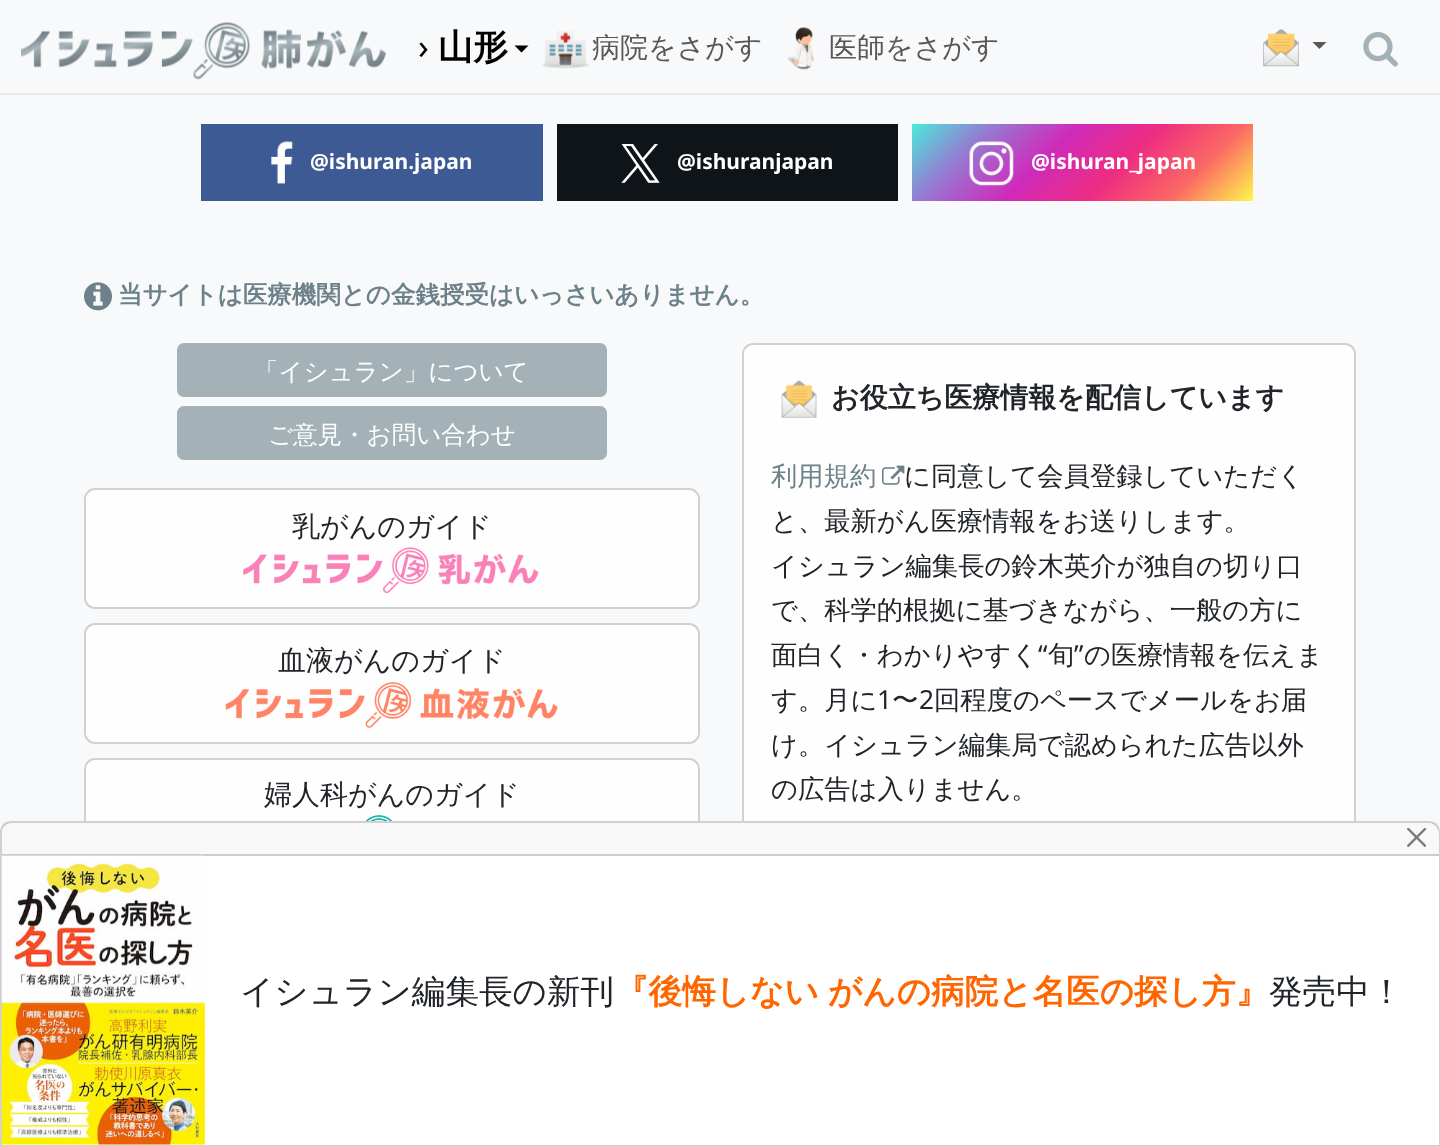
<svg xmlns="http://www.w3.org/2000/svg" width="1440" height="1146">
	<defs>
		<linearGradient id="g1" gradientUnits="userSpaceOnUse" x1="978" y1="58" x2="1187" y2="267"><stop offset="0" stop-color="#4AEADC" /><stop offset="0.2" stop-color="#9778D1" /><stop offset="0.4" stop-color="#CF2ABA" /><stop offset="0.6" stop-color="#EE2C82" /><stop offset="0.8" stop-color="#FB6962" /><stop offset="1" stop-color="#FEF84C" /></linearGradient>
	</defs>
	<rect width="100%" height="100%" fill="#F8F9FA" />
	<rect x="0" y="93" width="1440" height="2" fill="#E7E7E7" />
	<image x="21" y="22" width="365" height="58" href="assets/img1.png" />
	<text x="418" y="59" font-family="Noto Sans" font-size="35" fill="#000000">›</text>
	<text x="438" y="59" font-family="WenQuanYi Zen Hei" font-size="35" font-weight="700" fill="#000000">山形</text>
	<path d="M514.5 45.5H528.5L521.5 52.5Z" fill="#000000" />
	<image x="542" y="30" width="47" height="39" href="assets/img2.png" />
	<text x="592" y="57" font-family="WenQuanYi Zen Hei" font-size="28" font-weight="500" fill="#575758">病院をさがす</text>
	<image x="787" y="27" width="27" height="43" href="assets/img3.png" />
	<text x="829" y="57" font-family="WenQuanYi Zen Hei" font-size="28" font-weight="500" fill="#575758">医師をさがす</text>
	<image x="1263" y="29" width="36" height="38" href="assets/img4.png" />
	<path d="M1312.5 42H1326.5L1319.5 49Z" fill="#575758" />
	<image x="1363" y="32" width="35" height="35" href="assets/img5.png" />
	<rect x="201" y="124" width="342" height="77" fill="#3D5A95" />
	<image x="271" y="141" width="22" height="43" href="assets/img6.png" />
	<text x="310" y="169" font-family="Noto Sans" font-size="21" font-weight="700" fill="#FFFFFF">@ishuran.japan</text>
	<rect x="557" y="124" width="341" height="77" fill="#0F1419" />
	<image x="621" y="144" width="39" height="39" href="assets/img7.png" />
	<text x="677" y="169" font-family="Noto Sans" font-size="21" font-weight="700" fill="#FFFFFF">@ishuranjapan</text>
	<rect x="912" y="124" width="341" height="77" fill="url(#g1)" />
	<image x="969" y="141" width="45" height="45" href="assets/img8.png" />
	<text x="1031" y="169" font-family="Noto Sans" font-size="21" font-weight="700" fill="#FFFFFF">@ishuran_japan</text>
	<image x="84" y="282" width="28" height="29" href="assets/img9.png" />
	<text x="118" y="303" font-family="WenQuanYi Zen Hei" font-size="24.5" font-weight="700" fill="#6C8189">当サイトは医療機関との金銭授受はいっさいありません。</text>
	<rect x="178" y="344" width="428" height="52" rx="6" fill="#A4B2B7" stroke="#A4B2B7" stroke-width="2" />
	<text x="254" y="380" font-family="WenQuanYi Zen Hei" font-size="24.5" font-weight="500" fill="#FFFFFF">「イシュラン」について</text>
	<rect x="178" y="407" width="428" height="52" rx="6" fill="#A4B2B7" stroke="#A4B2B7" stroke-width="2" />
	<text x="268" y="443" font-family="WenQuanYi Zen Hei" font-size="24.5" font-weight="500" fill="#FFFFFF">ご意見・お問い合わせ</text>
	<rect x="85" y="489" width="614" height="119" rx="10" fill="#FEFEFE" stroke="#D1D1D1" stroke-width="2" />
	<rect x="86" y="490" width="612" height="117" rx="11" fill="#FEFEFE" />
	<text x="292" y="536" font-family="WenQuanYi Zen Hei" font-size="28" font-weight="500" fill="#212529">乳がんのガイド</text>
	<image x="243" y="547" width="296" height="46" href="assets/img10.png" />
	<rect x="85" y="624" width="614" height="119" rx="10" fill="#FEFEFE" stroke="#D1D1D1" stroke-width="2" />
	<rect x="86" y="625" width="612" height="117" rx="11" fill="#FEFEFE" />
	<text x="278" y="670" font-family="WenQuanYi Zen Hei" font-size="28" font-weight="500" fill="#212529">血液がんのガイド</text>
	<image x="225" y="682" width="333" height="46" href="assets/img11.png" />
	<rect x="85" y="759" width="614" height="117" rx="10" fill="#FEFEFE" stroke="#D1D1D1" stroke-width="2" />
	<rect x="86" y="760" width="612" height="115" rx="11" fill="#FEFEFE" />
	<text x="264" y="804" font-family="WenQuanYi Zen Hei" font-size="28" font-weight="500" fill="#212529">婦人科がんのガイド</text>
	<image x="365" y="815" width="28" height="6" href="assets/img12.png" />
	<rect x="743" y="344" width="612" height="691" rx="10" fill="#FEFEFE" stroke="#D1D1D1" stroke-width="2" />
	<image x="781" y="380" width="36" height="38" href="assets/img13.png" />
	<text x="831" y="407" font-family="WenQuanYi Zen Hei" font-size="28" font-weight="700" fill="#212529">お役立ち医療情報を配信しています</text>
	<text x="771" y="485" font-family="WenQuanYi Zen Hei" font-size="26.3" font-weight="500" fill="#6C8189">利用規約</text>
	<image x="882" y="465" width="23" height="20" href="assets/img14.png" />
	<g font-family="WenQuanYi Zen Hei" font-size="26.3" font-weight="500" fill="#212529">
		<text x="904" y="485">に同意して会員登録していただく</text>
		<text x="771" y="530">と、最新がん医療情報をお送りします。</text>
		<text x="771" y="575">イシュラン編集長の鈴木英介が独自の切り口</text>
		<text x="771" y="619">で、科学的根拠に基づきながら、一般の方に</text>
		<text x="771" y="664">面白く・わかりやすく</text>
	</g>
	<text x="1038" y="664" font-family="Noto Sans" font-size="26.3" fill="#212529">“</text>
	<text x="1048" y="664" font-family="WenQuanYi Zen Hei" font-size="26.3" font-weight="500" fill="#212529">旬</text>
	<text x="1074" y="664" font-family="Noto Sans" font-size="26.3" fill="#212529">”</text>
	<g font-family="WenQuanYi Zen Hei" font-size="26.3" font-weight="500" fill="#212529">
		<text x="1084" y="664">の医療情報を伝えま</text>
		<text x="771" y="709">す。月に</text>
	</g>
	<text x="877" y="709" font-family="Noto Sans" font-size="26.3" fill="#212529">1</text>
	<text x="892" y="709" font-family="WenQuanYi Zen Hei" font-size="26.3" font-weight="500" fill="#212529">〜</text>
	<text x="919" y="709" font-family="Noto Sans" font-size="26.3" fill="#212529">2</text>
	<g font-family="WenQuanYi Zen Hei" font-size="26.3" font-weight="500" fill="#212529">
		<text x="934" y="709">回程度のペースでメールをお届</text>
		<text x="771" y="754">け。イシュラン編集局で認められた広告以外</text>
		<text x="771" y="798">の広告は入りません。</text>
	</g>
	<path d="M11 822H1429C1434.5 822 1439 826.5 1439 832V1145H1V832C1 826.5 5.5 822 11 822Z" fill="#FEFEFE" stroke="#D1D1D1" stroke-width="2" />
	<path d="M13 823H1428C1434 823 1439 828 1439 834V1145H2V834C2 828 7 823 13 823Z" fill="#FFFFFF" />
	<rect x="2" y="823" width="1437" height="31" fill="#212529" fill-opacity="0.03" />
	<rect x="2" y="854" width="1437" height="2" fill="#CDCDCD" />
	<image x="1407" y="828" width="19" height="19" href="assets/img15.png" />
	<image x="1" y="855" width="204" height="290" href="assets/img16.png" />
	<text x="240" y="1003" font-family="WenQuanYi Zen Hei" font-size="33.6" font-weight="500" fill="#212529">イシュラン編集長の新刊</text>
	<text x="615" y="1003" word-spacing="-1" font-family="WenQuanYi Zen Hei" font-size="33.6" font-weight="700" fill="#FF6600">『後悔しない がんの病院と名医の探し方』</text>
	<text x="1269" y="1003" font-family="WenQuanYi Zen Hei" font-size="33.6" font-weight="500" fill="#212529">発売中！</text>
</svg>
